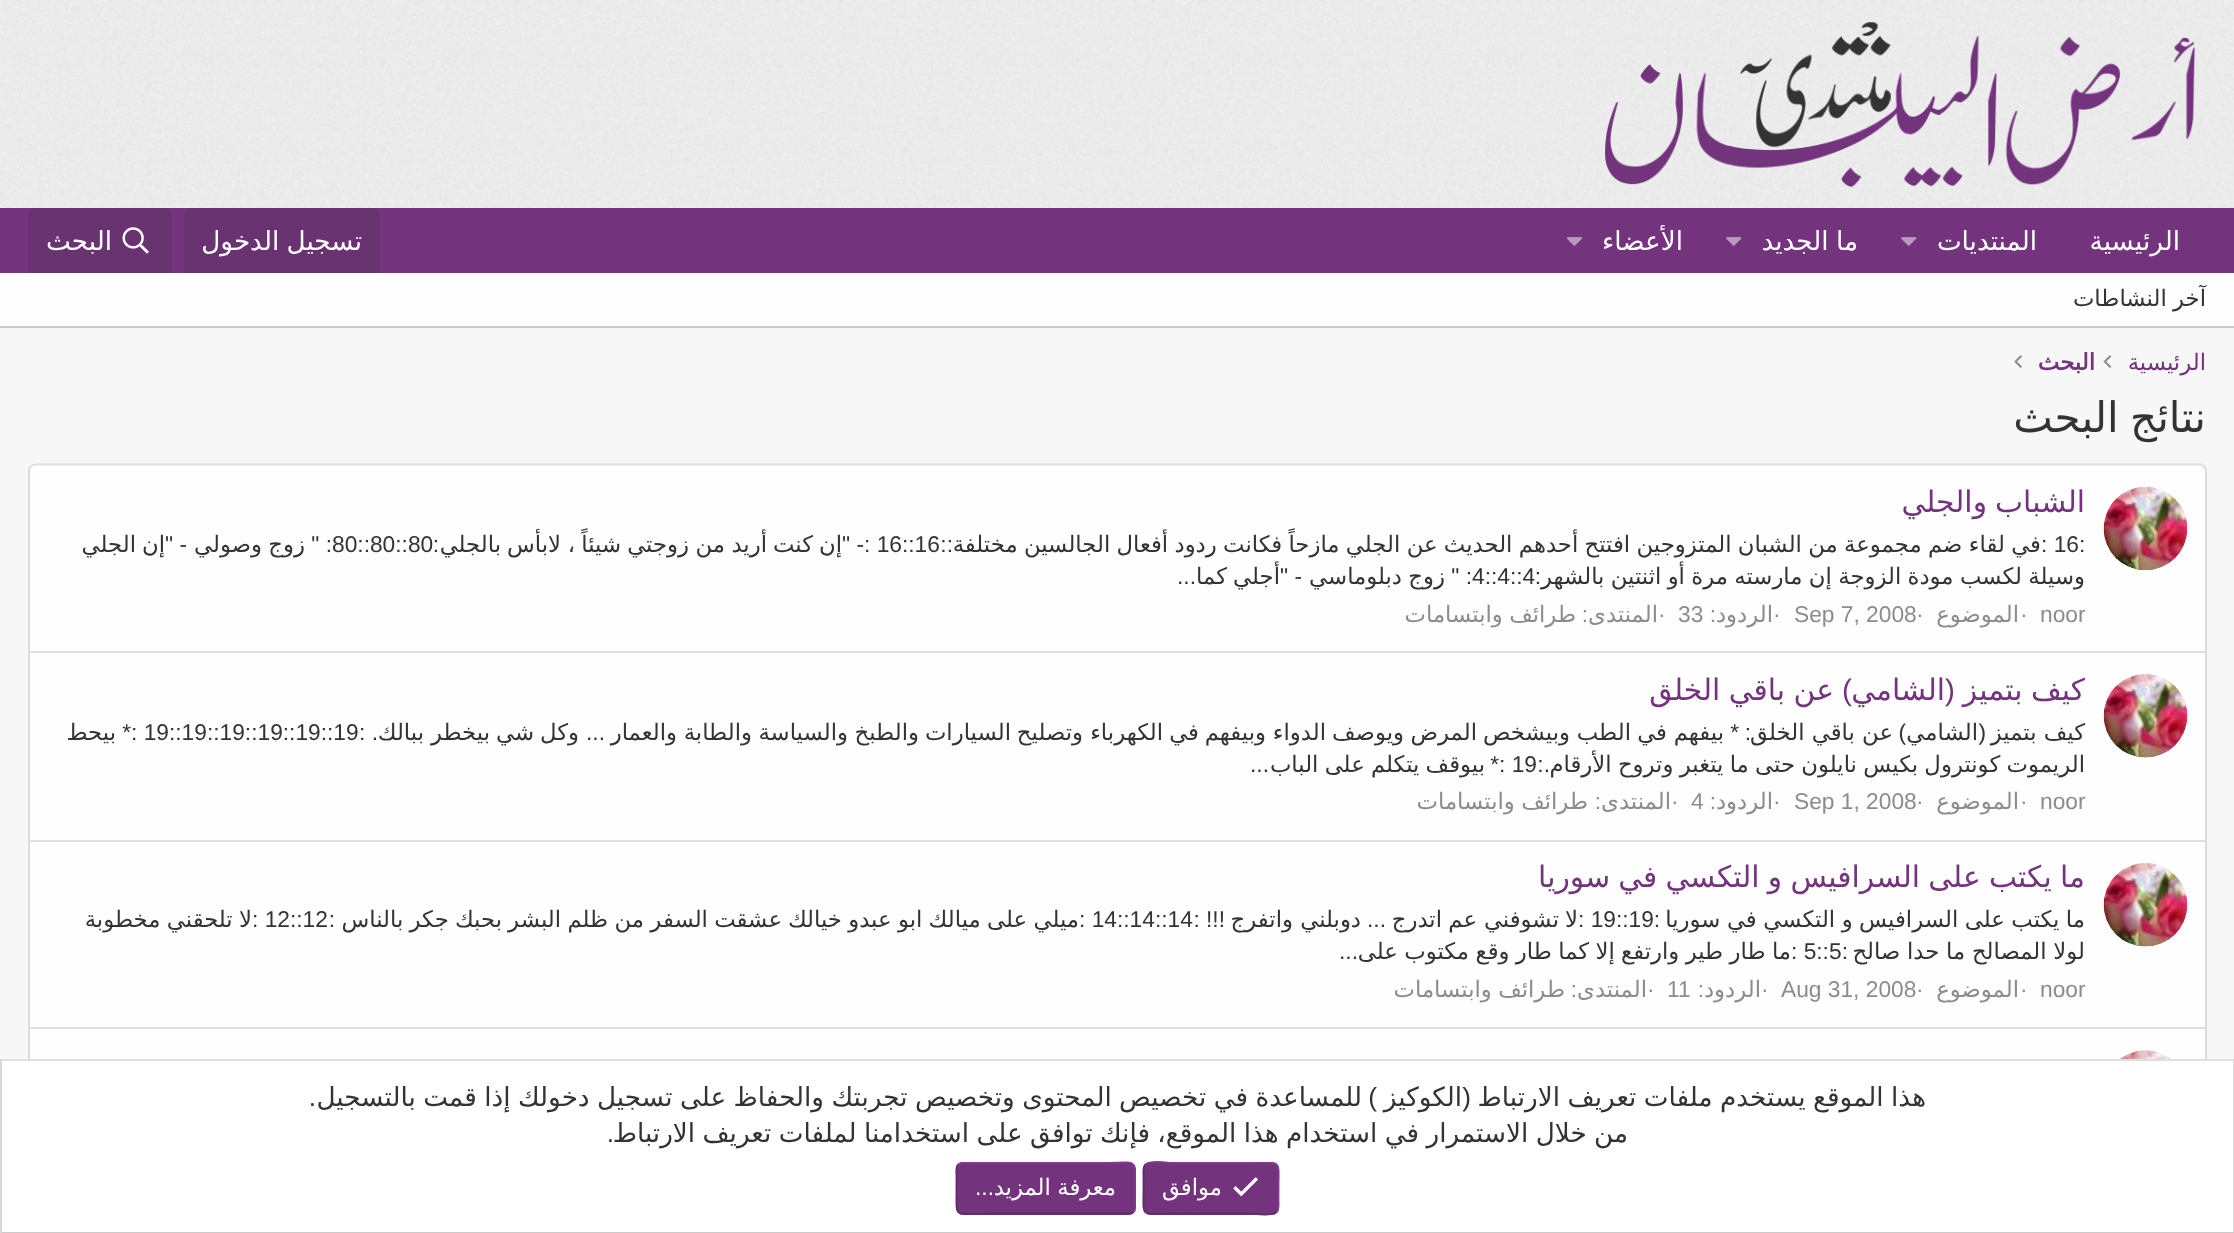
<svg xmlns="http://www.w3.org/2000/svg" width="2234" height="1233">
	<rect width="100%" height="100%" fill="#F8F7F7" />
	<image x="0" y="0" width="2234" height="208" href="assets/img1.png" />
	<image x="1605" y="22" width="591" height="166" href="assets/img2.png" />
	<rect x="0" y="208" width="2234" height="65" fill="#73337D" />
	<g font-family="DejaVu Sans" font-size="26.25" direction="rtl" fill="#FFFFFF">
		<text x="2180" y="250">الرئيسية</text>
		<text x="2037" y="250">المنتديات</text>
	</g>
	<image x="1901" y="237" width="16" height="9" href="assets/img3.png" />
	<text x="1858" y="250" word-spacing="-1" font-family="DejaVu Sans" font-size="26.25" direction="rtl" fill="#FFFFFF">ما الجديد</text>
	<image x="1726" y="237" width="16" height="9" href="assets/img3.png" />
	<text x="1683" y="250" font-family="DejaVu Sans" font-size="26.25" direction="rtl" fill="#FFFFFF">الأعضاء</text>
	<image x="1566" y="237" width="16" height="9" href="assets/img4.png" />
	<path d="M191 208H373C377 208 380 211 380 215V273H184V215C184 211 187 208 191 208Z" fill="#693372" />
	<text x="362" y="250" word-spacing="-1" font-family="DejaVu Sans" font-size="26.25" direction="rtl" fill="#FFFFFF">تسجيل الدخول</text>
	<path d="M35 208H165C169 208 172 211 172 215V273H28V215C28 211 31 208 35 208Z" fill="#693372" />
	<image x="122" y="227" width="27" height="27" href="assets/img5.png" />
	<text x="112" y="250" font-family="DejaVu Sans" font-size="26.25" direction="rtl" fill="#FFFFFF">البحث</text>
	<rect x="0" y="273" width="2234" height="53" fill="#FEFEFE" />
	<rect x="0" y="326" width="2234" height="2" fill="#CBCBCB" />
	<text x="2206" y="306" word-spacing="-0.9" font-family="DejaVu Sans" font-size="22.75" direction="rtl" fill="#333333">آخر النشاطات</text>
	<text x="2206" y="370" font-family="DejaVu Sans" font-size="22.75" direction="rtl" fill="#73337D">الرئيسية</text>
	<image x="2103" y="355" width="9" height="13" href="assets/img6.png" />
	<text x="2095" y="370" font-family="DejaVu Sans" font-size="22.75" font-weight="700" direction="rtl" fill="#73337D">البحث</text>
	<image x="2014" y="355" width="8" height="13" href="assets/img7.png" />
	<text x="2206" y="432" word-spacing="-2" font-family="DejaVu Sans" font-size="42" direction="rtl" fill="#333333">نتائج البحث</text>
	<rect x="28" y="464" width="2179" height="752" rx="7" fill="#FEFEFE" />
	<path d="M30.5 466.5C32 465.5 33.5 464.5 35 464.5H2200C2201.5 464.5 2203 465.5 2204 466.5" fill="none" stroke="#DFDFDF" stroke-width="1.8" />
	<path d="M2204 466.5C2205 467.5 2206 469 2206 471V1209C2206 1211 2205 1212.5 2204 1213.5" fill="none" stroke="#D8D8D8" stroke-width="1.8" />
	<path d="M30.5 1213.5C29.5 1212.5 29 1211 29 1209V471C29 469 29.5 467.5 30.5 466.5" fill="none" stroke="#D8D8D8" stroke-width="1.8" />
	<image x="2103" y="486" width="85" height="85" href="assets/img8.png" />
	<g font-family="DejaVu Sans" font-size="29.75" direction="rtl" fill="#73337D">
		<text x="2085" y="512">الشباب</text>
		<text x="1987" y="512">والجلي</text>
	</g>
	<text x="2041" y="552" font-family="Liberation Sans" font-size="22.75" fill="#333333">: 16:</text>
	<text x="2041" y="552" word-spacing="-0.9" font-family="DejaVu Sans" font-size="22.75" direction="rtl" fill="#333333">في لقاء ضم مجموعة من الشبان المتزوجين افتتح أحدهم الحديث عن الجلي مازحاً فكانت ردود أفعال الجالسين مختلفة</text>
	<text x="953" y="552" font-family="Liberation Sans" font-size="22.75" direction="rtl" fill="#333333">::</text>
	<text x="864" y="552" font-family="Liberation Sans" font-size="22.75" fill="#333333">: 16::16</text>
	<text x="864" y="552" font-family="Liberation Sans" font-size="22.75" direction="rtl" fill="#333333">- "</text>
	<g font-family="DejaVu Sans" font-size="22.75" direction="rtl" fill="#333333">
		<text x="842" y="552">إن</text>
		<text x="813" y="552">كنت</text>
		<text x="767" y="552">أريد</text>
		<text x="725" y="552">من</text>
		<text x="689" y="552">زوجتي</text>
		<text x="621" y="552">شيئاً</text>
		<text x="575" y="552">،</text>
		<text x="561" y="552">لابأس</text>
		<text x="501" y="552">بالجلي</text>
	</g>
	<text x="439" y="552" font-family="Liberation Sans" font-size="22.75" direction="rtl" fill="#333333">:</text>
	<text x="332" y="552" font-family="Liberation Sans" font-size="22.75" fill="#333333">80::80::80</text>
	<text x="332" y="552" font-family="Liberation Sans" font-size="22.75" direction="rtl" fill="#333333">: "</text>
	<g font-family="DejaVu Sans" font-size="22.75" direction="rtl" fill="#333333">
		<text x="305" y="552">زوج</text>
		<text x="262" y="552">وصولي</text>
	</g>
	<text x="187" y="552" font-family="Liberation Sans" font-size="22.75" direction="rtl" fill="#333333">- "</text>
	<g font-family="DejaVu Sans" font-size="22.75" direction="rtl" fill="#333333">
		<text x="165" y="552">إن</text>
		<text x="136" y="552">الجلي</text>
		<text x="2085" y="584" word-spacing="-0.9">وسيلة لكسب مودة الزوجة إن مارسته مرة أو اثنتين بالشهر</text>
	</g>
	<text x="1541" y="584" font-family="Liberation Sans" font-size="22.75" direction="rtl" fill="#333333">:</text>
	<text x="1472" y="584" font-family="Liberation Sans" font-size="22.75" fill="#333333">4::4::4</text>
	<text x="1472" y="584" font-family="Liberation Sans" font-size="22.75" direction="rtl" fill="#333333">: "</text>
	<g font-family="DejaVu Sans" font-size="22.75" direction="rtl" fill="#333333">
		<text x="1445" y="584">زوج</text>
		<text x="1402" y="584">دبلوماسي</text>
	</g>
	<text x="1302" y="584" font-family="Liberation Sans" font-size="22.75" direction="rtl" fill="#333333">- "</text>
	<g font-family="DejaVu Sans" font-size="22.75" direction="rtl" fill="#333333">
		<text x="1280" y="584">أجلي</text>
		<text x="1227" y="584">كما</text>
	</g>
	<text x="1196" y="584" font-family="Liberation Sans" font-size="22.75" direction="rtl" fill="#333333">...</text>
	<g font-family="Liberation Sans" font-size="22.75" fill="#8C8C8C">
		<text x="2040" y="622">noor</text>
		<text x="2020" y="622">·</text>
	</g>
	<text x="2019" y="622" font-family="DejaVu Sans" font-size="22.75" direction="rtl" fill="#8C8C8C">الموضوع</text>
	<g font-family="Liberation Sans" font-size="22.75" fill="#8C8C8C">
		<text x="1916" y="622">·</text>
		<text x="1794" y="622">Sep 7, 2008</text>
		<text x="1773" y="622">·</text>
	</g>
	<text x="1773" y="622" font-family="DejaVu Sans" font-size="22.75" direction="rtl" fill="#8C8C8C">الردود</text>
	<text x="1716" y="622" font-family="Liberation Sans" font-size="22.75" direction="rtl" fill="#8C8C8C">:</text>
	<g font-family="Liberation Sans" font-size="22.75" fill="#8C8C8C">
		<text x="1678" y="622">33</text>
		<text x="1658" y="622">·</text>
	</g>
	<text x="1658" y="622" font-family="DejaVu Sans" font-size="22.75" direction="rtl" fill="#8C8C8C">المنتدى</text>
	<text x="1588" y="622" font-family="Liberation Sans" font-size="22.75" direction="rtl" fill="#8C8C8C">:</text>
	<text x="1576" y="622" word-spacing="-0.9" font-family="DejaVu Sans" font-size="22.75" direction="rtl" fill="#8C8C8C">طرائف وابتسامات</text>
	<rect x="30" y="651" width="2175" height="2" fill="#DFDFDF" />
	<image x="2103" y="674" width="85" height="84" href="assets/img9.png" />
	<text x="2085" y="700" word-spacing="-1" font-family="DejaVu Sans" font-size="29.75" direction="rtl" fill="#73337D">كيف بتميز</text>
	<text x="1955" y="700" font-family="Liberation Sans" font-size="29.75" direction="rtl" fill="#73337D">(</text>
	<text x="1945" y="700" font-family="DejaVu Sans" font-size="29.75" direction="rtl" fill="#73337D">الشامي</text>
	<text x="1852" y="700" font-family="Liberation Sans" font-size="29.75" direction="rtl" fill="#73337D">)</text>
	<text x="1834" y="700" word-spacing="-1" font-family="DejaVu Sans" font-size="29.75" direction="rtl" fill="#73337D">عن باقي الخلق</text>
	<text x="2085" y="740" font-family="DejaVu Sans" font-size="22.75" direction="rtl" fill="#333333">كيف بتميز</text>
	<text x="1986" y="740" font-family="Liberation Sans" font-size="22.75" direction="rtl" fill="#333333">(</text>
	<text x="1978" y="740" font-family="DejaVu Sans" font-size="22.75" direction="rtl" fill="#333333">الشامي</text>
	<text x="1906" y="740" font-family="Liberation Sans" font-size="22.75" direction="rtl" fill="#333333">)</text>
	<text x="1893" y="740" font-family="DejaVu Sans" font-size="22.75" direction="rtl" fill="#333333">عن باقي الخلق</text>
	<g font-family="Liberation Sans" font-size="22.75" direction="rtl" fill="#333333">
		<text x="1751" y="740">:</text>
		<text x="1739" y="740">*</text>
	</g>
	<g font-family="DejaVu Sans" font-size="22.75" direction="rtl" fill="#333333">
		<text x="1724" y="740">بيفهم</text>
		<text x="1667" y="740">في</text>
		<text x="1631" y="740">الطب</text>
		<text x="1570" y="740">وبيشخص</text>
		<text x="1477" y="740">المرض</text>
		<text x="1404" y="740">ويوصف</text>
		<text x="1326" y="740">الدواء</text>
		<text x="1266" y="740">وبيفهم</text>
		<text x="1199" y="740">في</text>
		<text x="1163" y="740">الكهرباء</text>
		<text x="1083" y="740">وتصليح</text>
		<text x="1011" y="740">السيارات</text>
		<text x="919" y="740">والطبخ</text>
		<text x="848" y="740">والسياسة</text>
		<text x="752" y="740">والطابة</text>
		<text x="677" y="740">والعمار</text>
	</g>
	<text x="605" y="740" font-family="Liberation Sans" font-size="22.75" direction="rtl" fill="#333333">...</text>
	<g font-family="DejaVu Sans" font-size="22.75" direction="rtl" fill="#333333">
		<text x="579" y="740">وكل</text>
		<text x="534" y="740">شي</text>
		<text x="490" y="740">بيخطر</text>
		<text x="424" y="740">ببالك</text>
	</g>
	<text x="378" y="740" font-family="Liberation Sans" font-size="22.75" direction="rtl" fill="#333333">. :</text>
	<text x="131" y="740" font-family="Liberation Sans" font-size="22.75" fill="#333333">: 19::19::19::19::19::19</text>
	<text x="131" y="740" font-family="Liberation Sans" font-size="22.75" direction="rtl" fill="#333333">*</text>
	<g font-family="DejaVu Sans" font-size="22.75" direction="rtl" fill="#333333">
		<text x="116" y="740">بيحط</text>
		<text x="2085" y="772" word-spacing="-0.9">الريموت كونترول بكيس نايلون حتى ما يتغبر وتروح الأرقام</text>
	</g>
	<text x="1550" y="772" font-family="Liberation Sans" font-size="22.75" direction="rtl" fill="#333333">.:</text>
	<text x="1499" y="772" font-family="Liberation Sans" font-size="22.75" fill="#333333">: 19</text>
	<text x="1499" y="772" font-family="Liberation Sans" font-size="22.75" direction="rtl" fill="#333333">*</text>
	<text x="1485" y="772" word-spacing="-1" font-family="DejaVu Sans" font-size="22.75" direction="rtl" fill="#333333">بيوقف يتكلم على الباب</text>
	<text x="1269" y="772" font-family="Liberation Sans" font-size="22.75" direction="rtl" fill="#333333">...</text>
	<g font-family="Liberation Sans" font-size="22.75" fill="#8C8C8C">
		<text x="2040" y="809">noor</text>
		<text x="2020" y="809">·</text>
	</g>
	<text x="2019" y="809" font-family="DejaVu Sans" font-size="22.75" direction="rtl" fill="#8C8C8C">الموضوع</text>
	<g font-family="Liberation Sans" font-size="22.75" fill="#8C8C8C">
		<text x="1916" y="809">·</text>
		<text x="1794" y="809">Sep 1, 2008</text>
		<text x="1773" y="809">·</text>
	</g>
	<text x="1773" y="809" font-family="DejaVu Sans" font-size="22.75" direction="rtl" fill="#8C8C8C">الردود</text>
	<text x="1716" y="809" font-family="Liberation Sans" font-size="22.75" direction="rtl" fill="#8C8C8C">:</text>
	<g font-family="Liberation Sans" font-size="22.75" fill="#8C8C8C">
		<text x="1691" y="809">4</text>
		<text x="1671" y="809">·</text>
	</g>
	<text x="1671" y="809" font-family="DejaVu Sans" font-size="22.75" direction="rtl" fill="#8C8C8C">المنتدى</text>
	<text x="1601" y="809" font-family="Liberation Sans" font-size="22.75" direction="rtl" fill="#8C8C8C">:</text>
	<text x="1588" y="809" word-spacing="-0.9" font-family="DejaVu Sans" font-size="22.75" direction="rtl" fill="#8C8C8C">طرائف وابتسامات</text>
	<rect x="30" y="840" width="2175" height="2" fill="#DFDFDF" />
	<image x="2103" y="863" width="85" height="84" href="assets/img9.png" />
	<text x="2085" y="887" word-spacing="-1.25" font-family="DejaVu Sans" font-size="29.75" direction="rtl" fill="#73337D">ما يكتب على السرافيس و التكسي في سوريا</text>
	<text x="2085" y="927" word-spacing="-0.75" font-family="DejaVu Sans" font-size="22.75" direction="rtl" fill="#333333">ما يكتب على السرافيس و التكسي في سوريا</text>
	<text x="1660" y="927" font-family="Liberation Sans" font-size="22.75" direction="rtl" fill="#333333">:</text>
	<text x="1578" y="927" font-family="Liberation Sans" font-size="22.75" fill="#333333">: 19::19</text>
	<g font-family="DejaVu Sans" font-size="22.75" direction="rtl" fill="#333333">
		<text x="1578" y="927">لا</text>
		<text x="1559" y="927">تشوفني</text>
		<text x="1477" y="927">عم</text>
		<text x="1442" y="927">اتدرج</text>
	</g>
	<text x="1386" y="927" font-family="Liberation Sans" font-size="22.75" direction="rtl" fill="#333333">...</text>
	<g font-family="DejaVu Sans" font-size="22.75" direction="rtl" fill="#333333">
		<text x="1361" y="927">دوبلني</text>
		<text x="1293" y="927">واتفرج</text>
	</g>
	<text x="1225" y="927" font-family="Liberation Sans" font-size="22.75" direction="rtl" fill="#333333">!!! :</text>
	<text x="1079" y="927" font-family="Liberation Sans" font-size="22.75" fill="#333333">: 14::14::14</text>
	<g font-family="DejaVu Sans" font-size="22.75" direction="rtl" fill="#333333">
		<text x="1079" y="927" word-spacing="-0.9">ميلي على ميالك ابو عبدو خيالك</text>
		<text x="782" y="927" word-spacing="-0.9">عشقت السفر من ظلم البشر</text>
		<text x="502" y="927" word-spacing="-1">بحبك جكر بالناس</text>
	</g>
	<text x="335" y="927" font-family="Liberation Sans" font-size="22.75" direction="rtl" fill="#333333">:</text>
	<text x="252" y="927" font-family="Liberation Sans" font-size="22.75" fill="#333333">: 12::12</text>
	<g font-family="DejaVu Sans" font-size="22.75" direction="rtl" fill="#333333">
		<text x="252" y="927" word-spacing="-0.9">لا تلحقني مخطوبة</text>
		<text x="2085" y="959" word-spacing="-0.5">لولا المصالح ما حدا صالح</text>
	</g>
	<text x="1848" y="959" font-family="Liberation Sans" font-size="22.75" direction="rtl" fill="#333333">:</text>
	<text x="1791" y="959" font-family="Liberation Sans" font-size="22.75" fill="#333333">: 5::5</text>
	<g font-family="DejaVu Sans" font-size="22.75" direction="rtl" fill="#333333">
		<text x="1791" y="959" word-spacing="-0.9">ما طار طير وارتفع إلا كما طار وقع</text>
		<text x="1469" y="959" word-spacing="-0.9">مكتوب على</text>
	</g>
	<text x="1358" y="959" font-family="Liberation Sans" font-size="22.75" direction="rtl" fill="#333333">...</text>
	<g font-family="Liberation Sans" font-size="22.75" fill="#8C8C8C">
		<text x="2040" y="997">noor</text>
		<text x="2020" y="997">·</text>
	</g>
	<text x="2019" y="997" font-family="DejaVu Sans" font-size="22.75" direction="rtl" fill="#8C8C8C">الموضوع</text>
	<g font-family="Liberation Sans" font-size="22.75" fill="#8C8C8C">
		<text x="1916" y="997">·</text>
		<text x="1781" y="997">Aug 31, 2008</text>
		<text x="1761" y="997">·</text>
	</g>
	<text x="1761" y="997" font-family="DejaVu Sans" font-size="22.75" direction="rtl" fill="#8C8C8C">الردود</text>
	<text x="1704" y="997" font-family="Liberation Sans" font-size="22.75" direction="rtl" fill="#8C8C8C">:</text>
	<g font-family="Liberation Sans" font-size="22.75" fill="#8C8C8C">
		<text x="1667" y="997">11</text>
		<text x="1647" y="997">·</text>
	</g>
	<text x="1647" y="997" font-family="DejaVu Sans" font-size="22.75" direction="rtl" fill="#8C8C8C">المنتدى</text>
	<text x="1577" y="997" font-family="Liberation Sans" font-size="22.75" direction="rtl" fill="#8C8C8C">:</text>
	<text x="1565" y="997" word-spacing="-0.9" font-family="DejaVu Sans" font-size="22.75" direction="rtl" fill="#8C8C8C">طرائف وابتسامات</text>
	<rect x="30" y="1027" width="2175" height="2" fill="#DFDFDF" />
	<image x="2120" y="1050" width="51" height="9" href="assets/img10.png" />
	<rect x="2" y="1061" width="2231" height="171" fill="#FFFFFF" />
	<rect x="0" y="1059" width="2234" height="2" fill="#DFDFDF" />
	<rect x="2233" y="1059" width="1" height="174" fill="#D8D8D8" />
	<rect x="0" y="1232" width="2234" height="1" fill="#CBCBCB" />
	<rect x="0" y="1059" width="2" height="174" fill="#D8D8D8" />
	<text x="1926" y="1106" word-spacing="-0.9" font-family="DejaVu Sans" font-size="26.25" direction="rtl" fill="#333333">هذا الموقع يستخدم ملفات تعريف الارتباط</text>
	<text x="1471" y="1106" font-family="Liberation Sans" font-size="26.25" direction="rtl" fill="#333333">(</text>
	<g font-family="DejaVu Sans" font-size="26.25" direction="rtl" fill="#333333">
		<text x="1462" y="1106">الكوكيز</text>
		<text x="1362" y="1106" word-spacing="-0.9">للمساعدة في تخصيص المحتوى وتخصيص تجربتك والحفاظ على تسجيل دخولك إذا قمت بالتسجيل</text>
	</g>
	<g font-family="Liberation Sans" font-size="26.25" direction="rtl" fill="#333333">
		<text x="1377" y="1106">)</text>
		<text x="316" y="1106">.</text>
	</g>
	<text x="1628" y="1142" word-spacing="-1" font-family="DejaVu Sans" font-size="26.25" direction="rtl" fill="#333333">من خلال الاستمرار في استخدام هذا الموقع، فإنك توافق على استخدامنا لملفات تعريف الارتباط</text>
	<text x="614" y="1142" font-family="Liberation Sans" font-size="26.25" direction="rtl" fill="#333333">.</text>
	<rect x="1143" y="1162" width="136" height="53" rx="7" fill="#73337D" />
	<path d="M1145.5 1164.5C1150.5 1160 1169.5 1163 1170 1163H1252C1282.5 1163 1278.5 1159 1278.5 1188V1201C1278.5 1204.5 1279.5 1209 1276.5 1212" fill="none" stroke="#843A8F" stroke-width="1.8" />
	<path d="M1276.5 1212C1271.5 1216.5 1252.5 1213.5 1252 1213.5H1170C1139.5 1213.5 1143.5 1217.5 1143.5 1188V1175.5C1143.5 1172 1142.5 1167.5 1145.5 1164.5" fill="none" stroke="#622C6B" stroke-width="1.8" />
	<image x="1233" y="1177" width="25" height="20" href="assets/img11.png" />
	<text x="1222" y="1195" font-family="DejaVu Sans" font-size="22.75" direction="rtl" fill="#FFFFFF">موافق</text>
	<rect x="956" y="1162" width="180" height="53" rx="7" fill="#73337D" />
	<path d="M958 1164.5C959.5 1163.5 961 1163 962.5 1163H1101C1138 1163 1135 1156 1135 1188V1201C1135 1204.5 1136 1209 1133 1212" fill="none" stroke="#843A8F" stroke-width="1.8" />
	<path d="M1133 1212C1132 1213 1130.5 1213.5 1129 1213.5H990C953 1213.5 956.5 1220.5 956.5 1188V1175.5C956.5 1172 955.5 1167.5 958 1164.5" fill="none" stroke="#622C6B" stroke-width="1.8" />
	<text x="1116" y="1195" word-spacing="-0.9" font-family="DejaVu Sans" font-size="22.75" direction="rtl" fill="#FFFFFF">معرفة المزيد</text>
	<text x="994" y="1195" font-family="Liberation Sans" font-size="22.75" direction="rtl" fill="#FFFFFF">...</text>
</svg>
